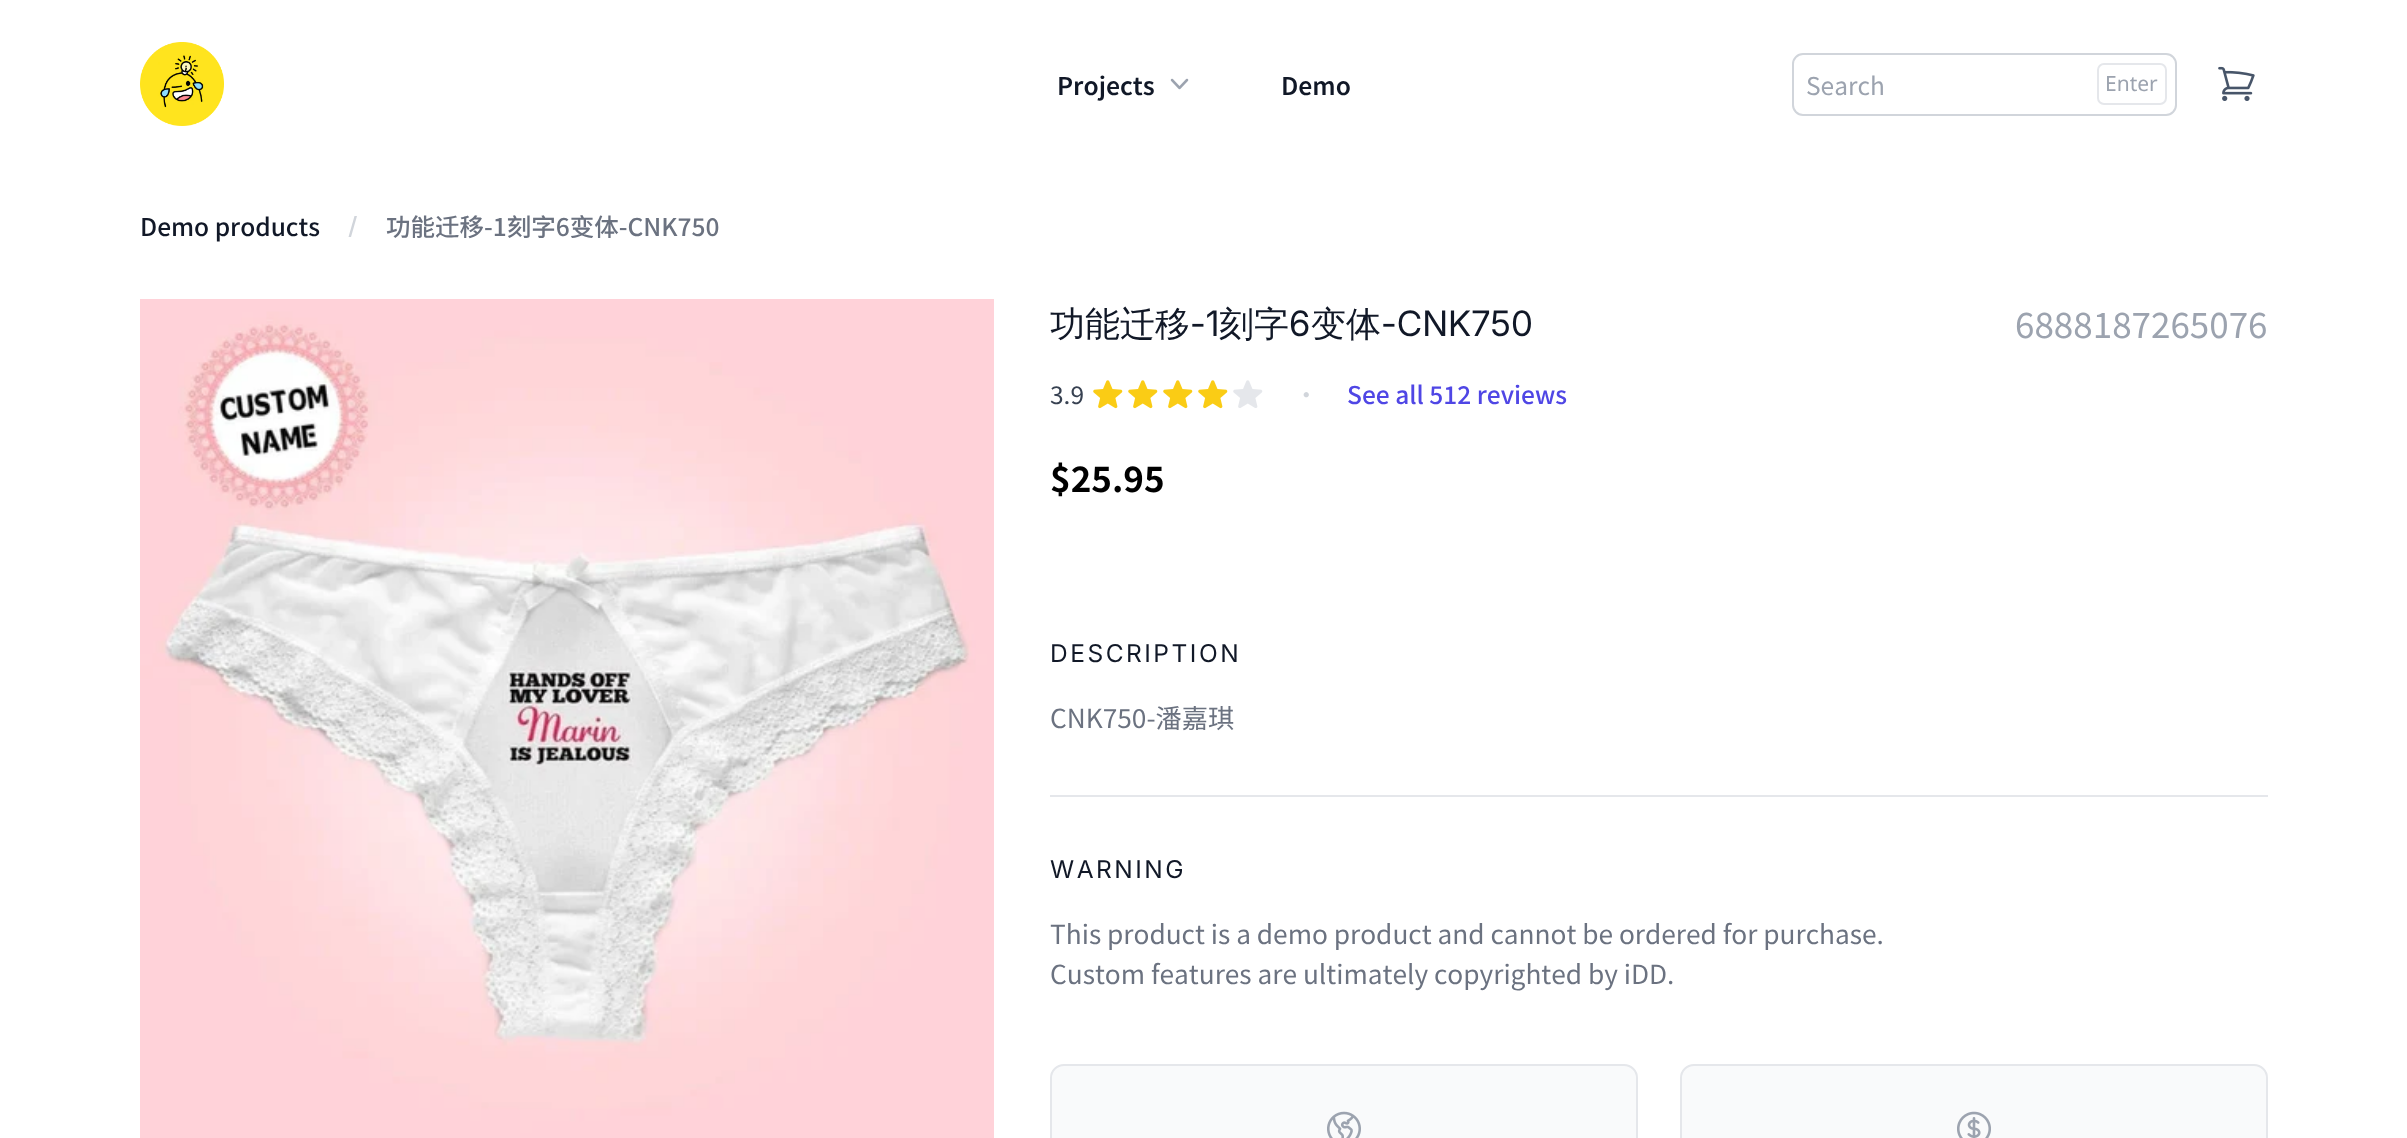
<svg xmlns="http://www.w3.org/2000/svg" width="2407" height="1138">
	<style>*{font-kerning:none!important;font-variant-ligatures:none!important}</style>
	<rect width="100%" height="100%" fill="#FFFFFF" />
	<image x="140" y="42" width="84" height="84" href="assets/img1.png" />
	<text x="1057" y="95" font-family="Noto Sans SC" font-size="24.5" font-weight="600" fill="#111827">Projects</text>
	<image x="1170" y="78" width="19" height="12" href="assets/img2.png" />
	<text x="1281" y="95" font-family="Noto Sans SC" font-size="24.5" font-weight="600" fill="#111827">Demo</text>
	<rect x="1793" y="54" width="383" height="61" rx="10" fill="none" stroke="#D1D5DB" stroke-width="2" />
	<text x="1806" y="95" font-family="Noto Sans SC" font-size="24.5" fill="#9CA3AF">Search</text>
	<rect x="2098" y="64" width="68" height="40" rx="6" fill="none" stroke="#E5E7EB" stroke-width="2" />
	<text x="2105" y="91" font-family="Noto Sans" font-size="21" fill="#9CA3AF">Enter</text>
	<image x="2218" y="66" width="37" height="35" href="assets/img3.png" />
	<text x="140" y="236" font-family="Noto Sans SC" font-size="24.5" font-weight="500" fill="#111827">Demo products</text>
	<path d="M357 216H354.5L348.5 237H351Z" fill="#D1D5DB" />
	<text x="386" y="236" font-family="Noto Sans SC" font-size="24.5" font-weight="500" fill="#6B7280">功能迁移-1刻字6变体-CNK750</text>
	<image x="140" y="299" width="854" height="839" href="assets/img4.png" />
	<text x="1050" y="336" font-family="WenQuanYi Zen Hei" font-size="35" font-weight="500" fill="#111827">功能迁移</text>
	<text x="1190" y="336" font-family="Inter" font-size="35" fill="#111827">-1</text>
	<text x="1219" y="336" font-family="WenQuanYi Zen Hei" font-size="35" font-weight="500" fill="#111827">刻字</text>
	<text x="1289" y="336" font-family="Inter" font-size="35" fill="#111827">6</text>
	<text x="1311" y="336" font-family="WenQuanYi Zen Hei" font-size="35" font-weight="500" fill="#111827">变体</text>
	<text x="1381" y="336" font-family="Inter" font-size="35" fill="#111827">-CNK750</text>
	<text x="2015" y="338" font-family="Noto Sans SC" font-size="35" fill="#9CA3AF">6888187265076</text>
	<text x="1050" y="404" font-family="Noto Sans SC" font-size="24.5" fill="#374151">3.9</text>
	<image x="1093" y="380" width="30" height="29" href="assets/img5.png" />
	<image x="1128" y="380" width="30" height="29" href="assets/img5.png" />
	<image x="1163" y="380" width="30" height="29" href="assets/img5.png" />
	<image x="1198" y="380" width="30" height="29" href="assets/img5.png" />
	<image x="1233" y="380" width="30" height="28" href="assets/img6.png" />
	<text x="1294" y="404" font-family="Noto Sans SC" font-size="24.5" fill="#D1D5DB">·</text>
	<text x="1347" y="404" font-family="Noto Sans SC" font-size="24.5" font-weight="500" fill="#4F46E5">See all 512 reviews</text>
	<text x="1050" y="492" font-family="Noto Sans SC" font-size="35" font-weight="700" fill="#000000">$25.95</text>
	<text x="1050" y="662" font-family="'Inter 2'" font-size="24.5" letter-spacing="2.5" fill="#111827">DESCRIPTION</text>
	<text x="1050" y="728" font-family="Noto Sans SC" font-size="26.25" fill="#6B7280">CNK750-潘嘉琪</text>
	<rect x="1050" y="795" width="1218" height="2" fill="#E5E7EB" />
	<text x="1050" y="878" font-family="'Inter 2'" font-size="24.5" letter-spacing="2.5" fill="#111827">WARNING</text>
	<g font-family="Noto Sans SC" font-size="26.25" fill="#6B7280">
		<text x="1050" y="944">This product is a demo product and cannot be ordered for purchase.</text>
		<text x="1050" y="984">Custom features are ultimately copyrighted</text>
		<text x="1588" y="984">by iDD.</text>
	</g>
	<rect x="1051" y="1065" width="586" height="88" rx="13" fill="#F9FAFB" stroke="#E5E7EB" stroke-width="2" />
	<image x="1327" y="1111" width="34" height="27" href="assets/img7.png" />
	<rect x="1681" y="1065" width="586" height="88" rx="13" fill="#F9FAFB" stroke="#E5E7EB" stroke-width="2" />
	<image x="1957" y="1111" width="34" height="27" href="assets/img8.png" />
</svg>
